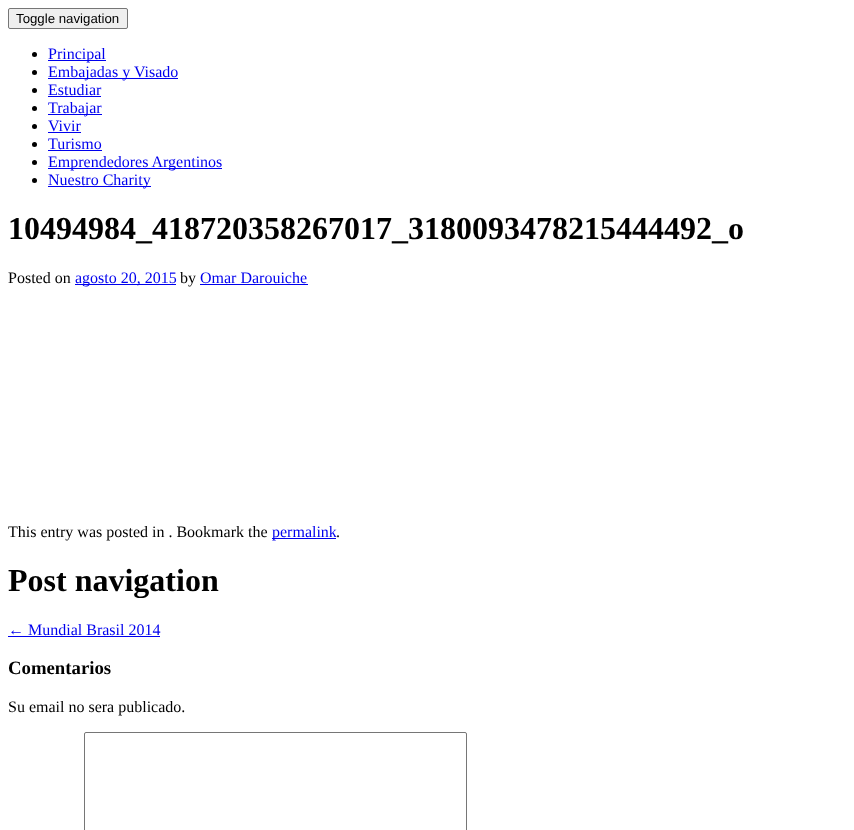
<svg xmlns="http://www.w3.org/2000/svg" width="854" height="830">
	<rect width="100%" height="100%" fill="#FFFFFF" />
	<rect x="8.5" y="8.5" width="119" height="20" rx="1.5" fill="#EFEFEF" stroke="#767676" />
	<text x="16" y="23" font-family="Liberation Sans" font-size="13.25" fill="#000000">Toggle navigation</text>
	<circle cx="34.5" cy="54.5" r="2.5" fill="#000000" />
	<rect x="48" y="60" width="58" height="1" fill="#0000EE" />
	<text x="48" y="59" font-family="Liberation Serif" font-size="16" fill="#0000EE">Principal</text>
	<circle cx="34.5" cy="72.5" r="2.5" fill="#000000" />
	<rect x="48" y="78" width="130" height="1" fill="#0000EE" />
	<text x="48" y="77" font-family="Liberation Serif" font-size="16" fill="#0000EE">Embajadas y Visado</text>
	<circle cx="34.5" cy="90.5" r="2.5" fill="#000000" />
	<text x="48" y="95" font-family="Liberation Serif" font-size="16" fill="#0000EE">Estudiar</text>
	<rect x="48" y="96" width="53" height="1" fill="#0000EE" />
	<circle cx="34.5" cy="108.5" r="2.5" fill="#000000" />
	<rect x="48" y="114" width="54" height="1" fill="#0000EE" />
	<text x="48" y="113" font-family="Liberation Serif" font-size="16" fill="#0000EE">Trabajar</text>
	<circle cx="34.5" cy="126.5" r="2.5" fill="#000000" />
	<text x="48" y="131" font-family="Liberation Serif" font-size="16" fill="#0000EE">Vivir</text>
	<rect x="48" y="132" width="33" height="1" fill="#0000EE" />
	<circle cx="34.5" cy="144.5" r="2.5" fill="#000000" />
	<text x="48" y="149" font-family="Liberation Serif" font-size="16" fill="#0000EE">Turismo</text>
	<rect x="48" y="150" width="54" height="1" fill="#0000EE" />
	<circle cx="34.5" cy="162.5" r="2.5" fill="#000000" />
	<rect x="48" y="168" width="174" height="1" fill="#0000EE" />
	<text x="48" y="167" font-family="Liberation Serif" font-size="16" fill="#0000EE">Emprendedores Argentinos</text>
	<circle cx="34.5" cy="180.5" r="2.5" fill="#000000" />
	<rect x="48" y="186" width="103" height="1" fill="#0000EE" />
	<text x="48" y="185" font-family="Liberation Serif" font-size="16" fill="#0000EE">Nuestro Charity</text>
	<text x="8" y="239" font-family="Liberation Serif" font-size="32" font-weight="700" fill="#000000">10494984_418720358267017_3180093478215444492_o</text>
	<text x="8" y="283" font-family="Liberation Serif" font-size="16" fill="#000000">Posted on</text>
	<rect x="75" y="284" width="101" height="1" fill="#0000EE" />
	<text x="75" y="283" font-family="Liberation Serif" font-size="16" fill="#0000EE">agosto 20, 2015</text>
	<text x="180" y="283" font-family="Liberation Serif" font-size="16" fill="#000000">by</text>
	<rect x="200" y="284" width="108" height="1" fill="#0000EE" />
	<text x="200" y="283" font-family="Liberation Serif" font-size="16" fill="#0000EE">Omar Darouiche</text>
	<text x="8" y="537" font-family="Liberation Serif" font-size="16" fill="#000000">This entry was posted in . Bookmark the</text>
	<rect x="272" y="538" width="64" height="1" fill="#0000EE" />
	<text x="272" y="537" font-family="Liberation Serif" font-size="16" fill="#0000EE">permalink</text>
	<text x="336" y="537" font-family="Liberation Serif" font-size="16" fill="#000000">.</text>
	<text x="8" y="591" font-family="Liberation Serif" font-size="32" font-weight="700" fill="#000000">Post navigation</text>
	<text x="8" y="635" font-family="Liberation Serif" font-size="16" fill="#0000EE">← Mundial Brasil 2014</text>
	<rect x="8" y="636" width="152" height="1" fill="#0000EE" />
	<text x="8" y="674" font-family="Liberation Serif" font-size="18.75" font-weight="700" fill="#000000">Comentarios</text>
	<text x="8" y="712" font-family="Liberation Serif" font-size="16" fill="#000000">Su email no sera publicado.</text>
	<rect x="84.5" y="732.5" width="382" height="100" rx="1.5" fill="none" stroke="#767676" />
</svg>
